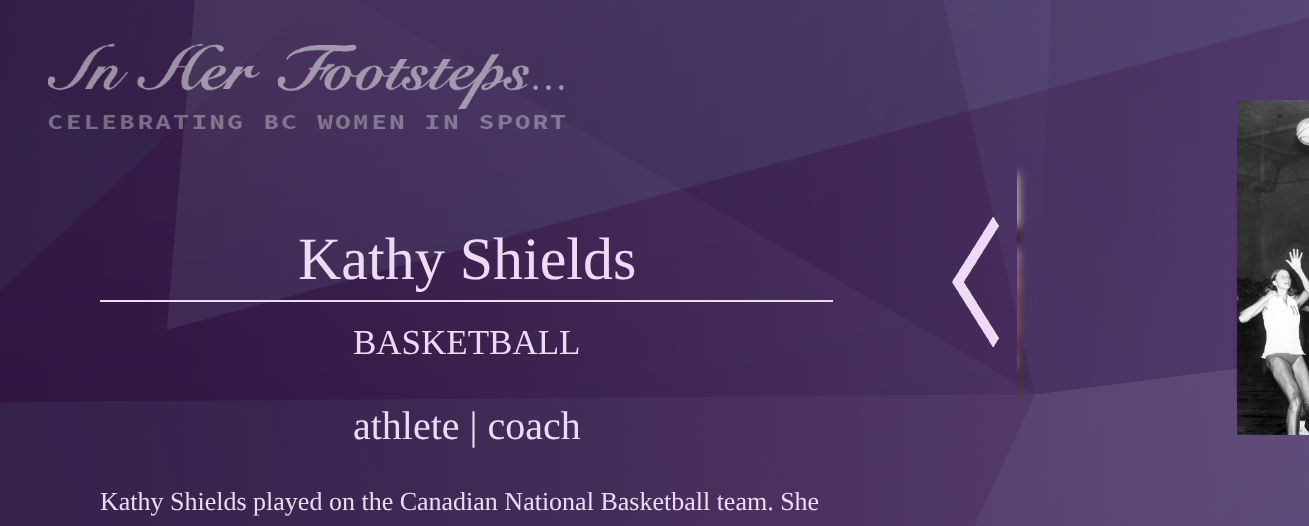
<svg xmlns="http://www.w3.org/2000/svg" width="1309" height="526">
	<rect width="100%" height="100%" fill="#FFFFFF" />
	<image x="0" y="0" width="1309" height="526" href="assets/img1.png" />
	<image x="48" y="43" width="518" height="86" href="assets/img2.png" />
	<rect x="100" y="300" width="733" height="2" fill="#EEDAF4" />
	<text x="298" y="279" font-family="Liberation Serif" font-size="60" fill="#EEDAF4">Kathy Shields</text>
	<text x="353" y="354" font-family="Liberation Serif" font-size="35" fill="#EEDAF4">BASKETBALL</text>
	<text x="353" y="439" font-family="Liberation Serif" font-size="40" fill="#EEDAF4">athlete | coach</text>
	<text x="100" y="510" font-family="Liberation Serif" font-size="26" fill="#EEDAF4">Kathy Shields played on the Canadian National Basketball team. She</text>
	<image x="952" y="217" width="47" height="130" href="assets/img3.png" />
	<image x="1017" y="166" width="10" height="237" href="assets/img4.png" />
	<image x="1234" y="169" width="3" height="232" href="assets/img5.png" />
	<image x="1237" y="100" width="72" height="335" href="assets/img6.png" />
</svg>
